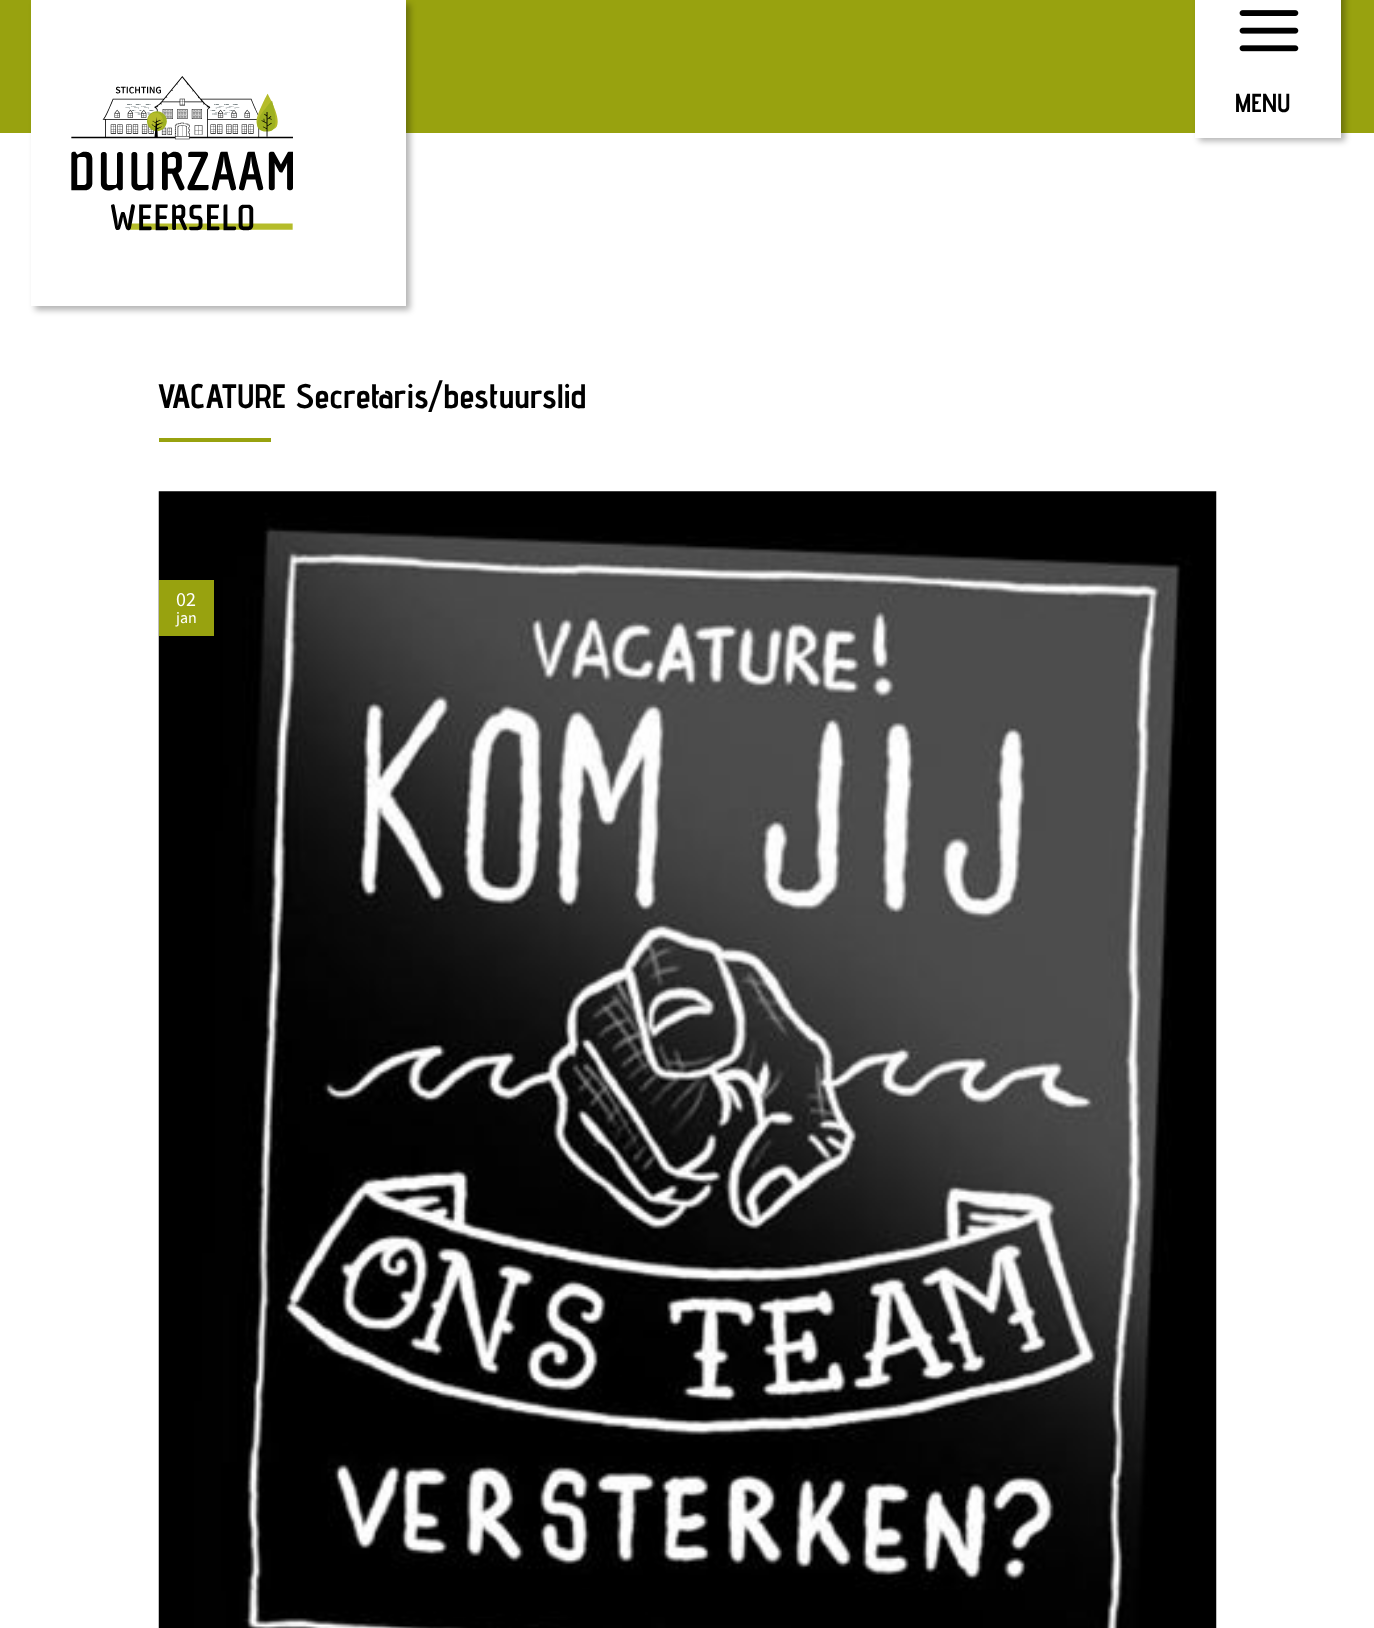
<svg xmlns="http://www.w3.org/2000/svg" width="1374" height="1628">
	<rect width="100%" height="100%" fill="#FFFFFF" />
	<rect x="0" y="0" width="1374" height="133" fill="#98A20F" />
	<rect x="35" y="4" width="375" height="306" fill="#000000" fill-opacity="0.3" filter="blur(3px)" />
	<rect x="31" y="0" width="375" height="306" fill="#FFFFFF" />
	<image x="71" y="76" width="222" height="155" href="assets/img1.png" />
	<rect x="1199" y="-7" width="146" height="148" fill="#000000" fill-opacity="0.3" filter="blur(3px)" />
	<rect x="1195" y="0" width="146" height="138" fill="#FFFFFF" />
	<image x="1239" y="10" width="60" height="42" href="assets/img2.png" />
	<text x="1235" y="112" font-family="Advent Pro" font-size="26" font-weight="700" fill="#000000">MENU</text>
	<text x="158" y="408" font-family="Advent Pro" font-size="34" font-weight="700" fill="#000000">VACATURE Secretaris/bestuurslid</text>
	<rect x="159" y="438" width="112" height="4" fill="#98A20F" />
	<image x="158" y="491" width="1059" height="1137" href="assets/img3.png" />
	<rect x="159" y="580" width="55" height="56" fill="#98A20F" />
	<text x="176" y="606" font-family="Source Sans Pro" font-size="20" fill="#FFFFFF">02</text>
	<text x="176" y="623" font-family="Source Sans Pro" font-size="16" fill="#FFFFFF">jan</text>
</svg>
